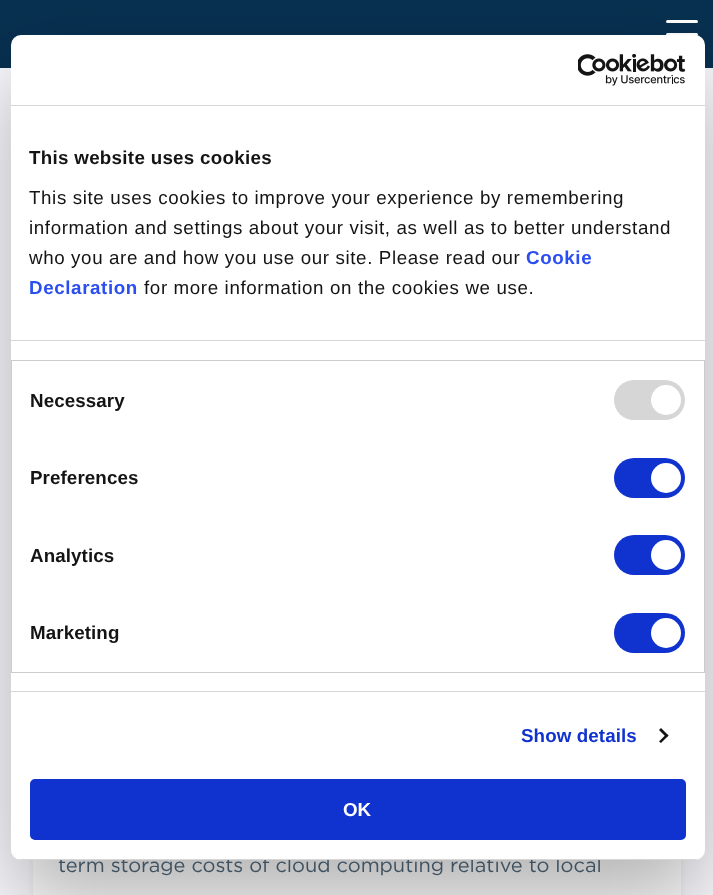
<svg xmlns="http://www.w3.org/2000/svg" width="713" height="895">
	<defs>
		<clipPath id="clip1"><rect x="11" y="35" width="694" height="825" rx="10" /></clipPath>
	</defs>
	<rect width="100%" height="100%" fill="#FBFAFE" />
	<rect x="0" y="0" width="713" height="68" fill="#083050" />
	<rect x="666" y="33" width="32" height="3" rx="1.5" fill="#FFFFFF" />
	<rect x="666" y="20" width="32" height="3" rx="1.5" fill="#FFFFFF" />
	<rect x="33" y="219" width="648" height="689" rx="5" fill="#E6EBEF" filter="blur(2.5px)" />
	<rect x="33" y="860" width="648" height="35" fill="#FFFFFF" />
	<rect x="11" y="75" width="694" height="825" rx="10" fill="#000000" fill-opacity="0.3" filter="blur(42.5px)" />
	<text x="58" y="872" font-family="Gotham" font-size="20" fill="#3E5160">term storage costs of cloud computing relative to local</text>
	<rect x="11" y="35" width="694" height="825" rx="10" fill="#FFFFFF" />
	<rect x="11" y="105" width="694" height="1" fill="#D6D6D6" />
	<image x="578" y="54" width="108" height="32" href="assets/img1.png" />
	<rect x="11" y="340" width="694" height="1" fill="#D6D6D6" />
	<text x="29" y="164" font-family="Liberation Sans" font-size="18.75" font-weight="700" letter-spacing="0.3" fill="#141414">This website uses cookies</text>
	<g font-family="Liberation Sans" font-size="18.75" letter-spacing="0.62" fill="#141414">
		<text x="29" y="204">This site uses cookies to improve your experience by remembering</text>
		<text x="29" y="234">information and settings about your visit, as well as to better understand</text>
		<text x="29" y="264">who you are and how you use our site. Please read our</text>
	</g>
	<g font-family="Liberation Sans" font-size="18.75" font-weight="700" letter-spacing="0.62" fill="#2A4EEF">
		<text x="526" y="264">Cookie</text>
		<text x="29" y="294">Declaration</text>
	</g>
	<text x="144" y="294" font-family="Liberation Sans" font-size="18.75" letter-spacing="0.62" fill="#141414">for more information on the cookies we use.</text>
	<rect x="11" y="691" width="694" height="1" fill="#D6D6D6" />
	<rect x="11.5" y="360.5" width="693" height="312" fill="none" stroke="#CCCCCC" />
	<text x="30" y="407" font-family="Liberation Sans" font-size="18.75" font-weight="700" letter-spacing="0.1" fill="#141414">Necessary</text>
	<rect x="614" y="380" width="71" height="40" rx="20" fill="#D6D6D6" />
	<circle cx="666" cy="400" r="15" fill="#FFFFFF" />
	<text x="30" y="484" font-family="Liberation Sans" font-size="18.75" font-weight="700" letter-spacing="0.1" fill="#141414">Preferences</text>
	<rect x="614" y="458" width="71" height="40" rx="20" fill="#1032CF" />
	<circle cx="666" cy="478" r="15" fill="#FFFFFF" />
	<text x="30" y="562" font-family="Liberation Sans" font-size="18.75" font-weight="700" letter-spacing="0.1" fill="#141414">Analytics</text>
	<rect x="614" y="535" width="71" height="40" rx="20" fill="#1032CF" />
	<circle cx="666" cy="555" r="15" fill="#FFFFFF" />
	<text x="30" y="639" font-family="Liberation Sans" font-size="18.75" font-weight="700" letter-spacing="0.1" fill="#141414">Marketing</text>
	<rect x="614" y="613" width="71" height="40" rx="20" fill="#1032CF" />
	<circle cx="666" cy="633" r="15" fill="#FFFFFF" />
	<text x="521" y="742" font-family="Liberation Sans" font-size="18.75" font-weight="700" letter-spacing="0.1" fill="#1032CF">Show details</text>
	<path d="M661 728L668.5 735.5L666.5 737.5L659 730Z" fill="#141414" />
	<path d="M666.5 734L668.5 735.5L661 743L659 741.5Z" fill="#141414" />
	<g clip-path="url(#clip1)">
		<rect x="11" y="859" width="694" height="1" fill="#D6D6D6" />
	</g>
	<rect x="31.5" y="780.5" width="653" height="58" rx="3.5" fill="#1032CF" stroke="#1032CF" stroke-width="3" />
	<text x="343" y="816" font-family="Liberation Sans" font-size="18.75" font-weight="700" fill="#FFFFFF">OK</text>
</svg>
